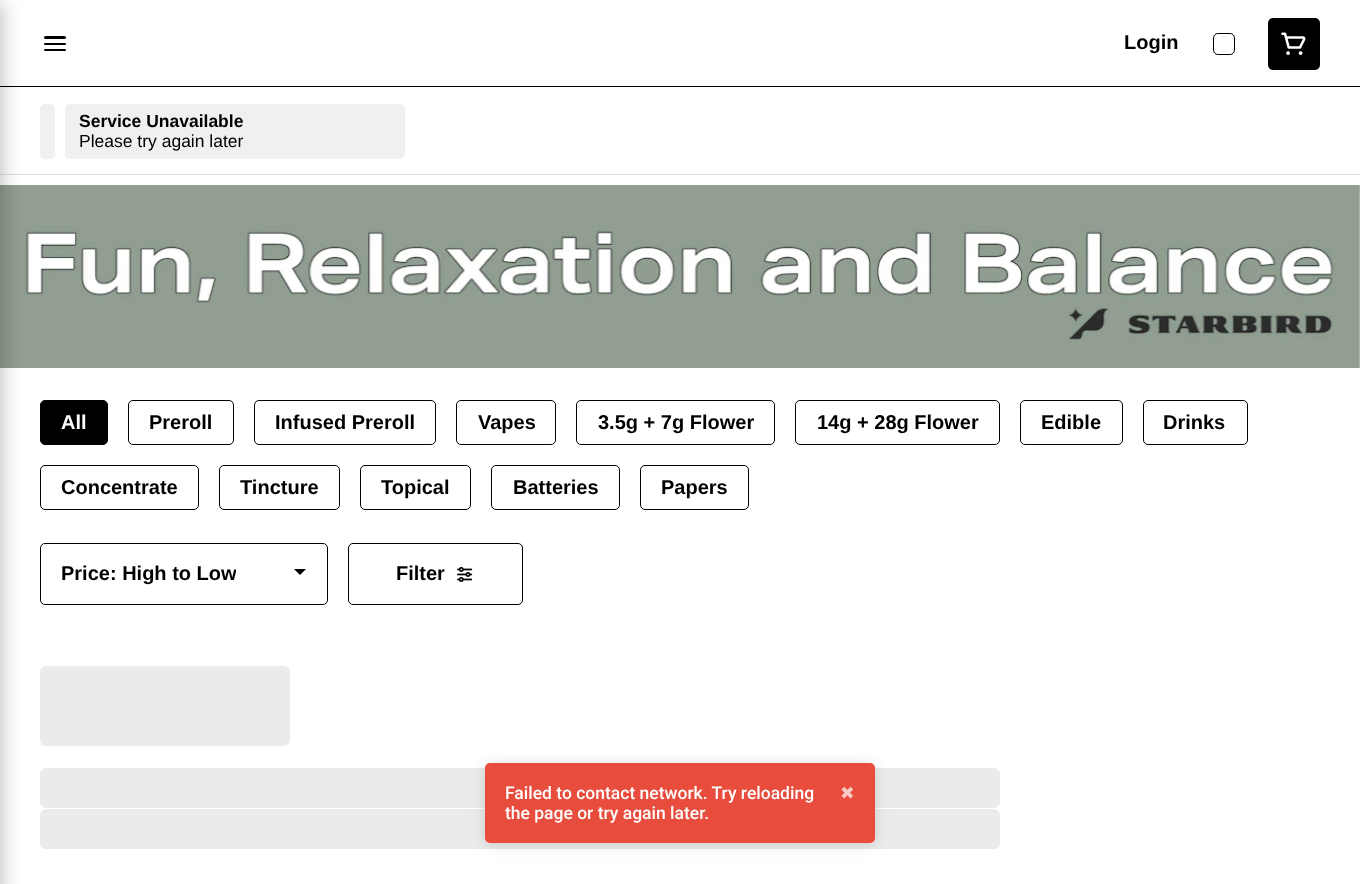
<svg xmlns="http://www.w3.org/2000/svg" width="1360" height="884">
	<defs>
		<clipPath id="clip1"><rect x="61" y="559" width="175" height="30" /></clipPath>
	</defs>
	<rect width="100%" height="100%" fill="#FFFFFF" />
	<rect x="0" y="86" width="1360" height="1" fill="#000000" />
	<rect x="0" y="174" width="1360" height="1" fill="#E1E1E1" />
	<image x="0" y="185" width="1360" height="183" href="assets/img2.png" />
	<rect x="-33" y="3" width="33" height="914" fill="#000000" fill-opacity="0.3" filter="blur(11px)" />
	<rect x="44" y="43" width="22" height="2" rx="1" fill="#000000" />
	<rect x="44" y="49" width="22" height="2" rx="1" fill="#000000" />
	<rect x="44" y="36" width="22" height="3" rx="1.5" fill="#000000" />
	<text x="1124" y="49" font-family="Liberation Sans" font-size="20" font-weight="700" fill="#000000">Login</text>
	<rect x="1213.5" y="33.5" width="21" height="21" rx="4.5" fill="none" stroke="#000000" />
	<rect x="1268" y="18" width="52" height="52" rx="5" fill="#000000" />
	<image x="1281" y="32" width="25" height="23" href="assets/img1.png" />
	<rect x="40.5" y="104.5" width="14" height="54" rx="4.5" fill="#F0F0F0" stroke="#F0F0F0" />
	<rect x="65.5" y="104.5" width="339" height="54" rx="4.5" fill="#F0F0F0" stroke="#F0F0F0" />
	<text x="79" y="127" font-family="Liberation Sans" font-size="17.5" font-weight="700" fill="#000000">Service Unavailable</text>
	<text x="79" y="147" font-family="Liberation Sans" font-size="17.5" fill="#000000">Please try again later</text>
	<rect x="40.5" y="400.5" width="67" height="44" rx="4.5" fill="#000000" stroke="#000000" />
	<text x="61" y="429" font-family="Liberation Sans" font-size="20" font-weight="700" fill="#FFFFFF">All</text>
	<rect x="128.5" y="400.5" width="105" height="44" rx="4.5" fill="none" stroke="#000000" />
	<text x="149" y="429" font-family="Liberation Sans" font-size="20" font-weight="700" fill="#000000">Preroll</text>
	<rect x="254.5" y="400.5" width="181" height="44" rx="4.5" fill="none" stroke="#000000" />
	<text x="275" y="429" font-family="Liberation Sans" font-size="20" font-weight="700" fill="#000000">Infused Preroll</text>
	<rect x="456.5" y="400.5" width="99" height="44" rx="4.5" fill="none" stroke="#000000" />
	<text x="478" y="429" font-family="Liberation Sans" font-size="20" font-weight="700" fill="#000000">Vapes</text>
	<rect x="576.5" y="400.5" width="198" height="44" rx="4.5" fill="none" stroke="#000000" />
	<text x="598" y="429" font-family="Liberation Sans" font-size="20" font-weight="700" fill="#000000">3.5g + 7g Flower</text>
	<rect x="795.5" y="400.5" width="204" height="44" rx="4.5" fill="none" stroke="#000000" />
	<text x="817" y="429" font-family="Liberation Sans" font-size="20" font-weight="700" fill="#000000">14g + 28g Flower</text>
	<rect x="1020.5" y="400.5" width="102" height="44" rx="4.5" fill="none" stroke="#000000" />
	<text x="1041" y="429" font-family="Liberation Sans" font-size="20" font-weight="700" fill="#000000">Edible</text>
	<rect x="1143.5" y="400.5" width="104" height="44" rx="4.5" fill="none" stroke="#000000" />
	<text x="1163" y="429" font-family="Liberation Sans" font-size="20" font-weight="700" fill="#000000">Drinks</text>
	<rect x="40.5" y="465.5" width="158" height="44" rx="4.5" fill="none" stroke="#000000" />
	<text x="61" y="494" font-family="Liberation Sans" font-size="20" font-weight="700" fill="#000000">Concentrate</text>
	<rect x="219.5" y="465.5" width="120" height="44" rx="4.5" fill="none" stroke="#000000" />
	<text x="240" y="494" font-family="Liberation Sans" font-size="20" font-weight="700" fill="#000000">Tincture</text>
	<rect x="360.5" y="465.5" width="110" height="44" rx="4.5" fill="none" stroke="#000000" />
	<text x="381" y="494" font-family="Liberation Sans" font-size="20" font-weight="700" fill="#000000">Topical</text>
	<rect x="491.5" y="465.5" width="128" height="44" rx="4.5" fill="none" stroke="#000000" />
	<text x="513" y="494" font-family="Liberation Sans" font-size="20" font-weight="700" fill="#000000">Batteries</text>
	<rect x="640.5" y="465.5" width="108" height="44" rx="4.5" fill="none" stroke="#000000" />
	<text x="661" y="494" font-family="Liberation Sans" font-size="20" font-weight="700" fill="#000000">Papers</text>
	<rect x="40.5" y="543.5" width="287" height="61" rx="4.5" fill="none" stroke="#000000" />
	<g clip-path="url(#clip1)">
		<text x="61" y="580" font-family="Liberation Sans" font-size="20" font-weight="700" fill="#000000">Price: High to Low</text>
	</g>
	<path d="M294 569H306L300 575Z" fill="#000000" />
	<rect x="348.5" y="543.5" width="174" height="61" rx="4.5" fill="none" stroke="#000000" />
	<text x="396" y="580" font-family="Liberation Sans" font-size="20" font-weight="700" fill="#000000">Filter</text>
	<image x="457" y="567" width="16" height="15" href="assets/img3.png" />
	<rect x="40" y="666" width="250" height="80" rx="6" fill="#EBEBEB" />
	<rect x="40" y="768" width="960" height="40" rx="6" fill="#EBEBEB" />
	<rect x="40" y="809" width="960" height="40" rx="6" fill="#EBEBEB" />
	<rect x="485" y="765" width="390" height="80" rx="5" fill="#000000" fill-opacity="0.05" filter="blur(9.5px)" />
	<rect x="485" y="764" width="390" height="80" rx="5" fill="#000000" fill-opacity="0.1" filter="blur(6px)" />
	<rect x="485" y="763" width="390" height="80" rx="5" fill="#E74C3C" />
	<g font-family="Roboto" font-size="17.5" font-weight="500" fill="#FFFFFF">
		<text x="505" y="799">Failed to contact network. Try reloading</text>
		<text x="505" y="819">the page or try again later.</text>
	</g>
	<text x="840" y="799" font-family="DejaVu Sans" font-size="17.5" fill="#F8C9C5">✖︎</text>
</svg>
